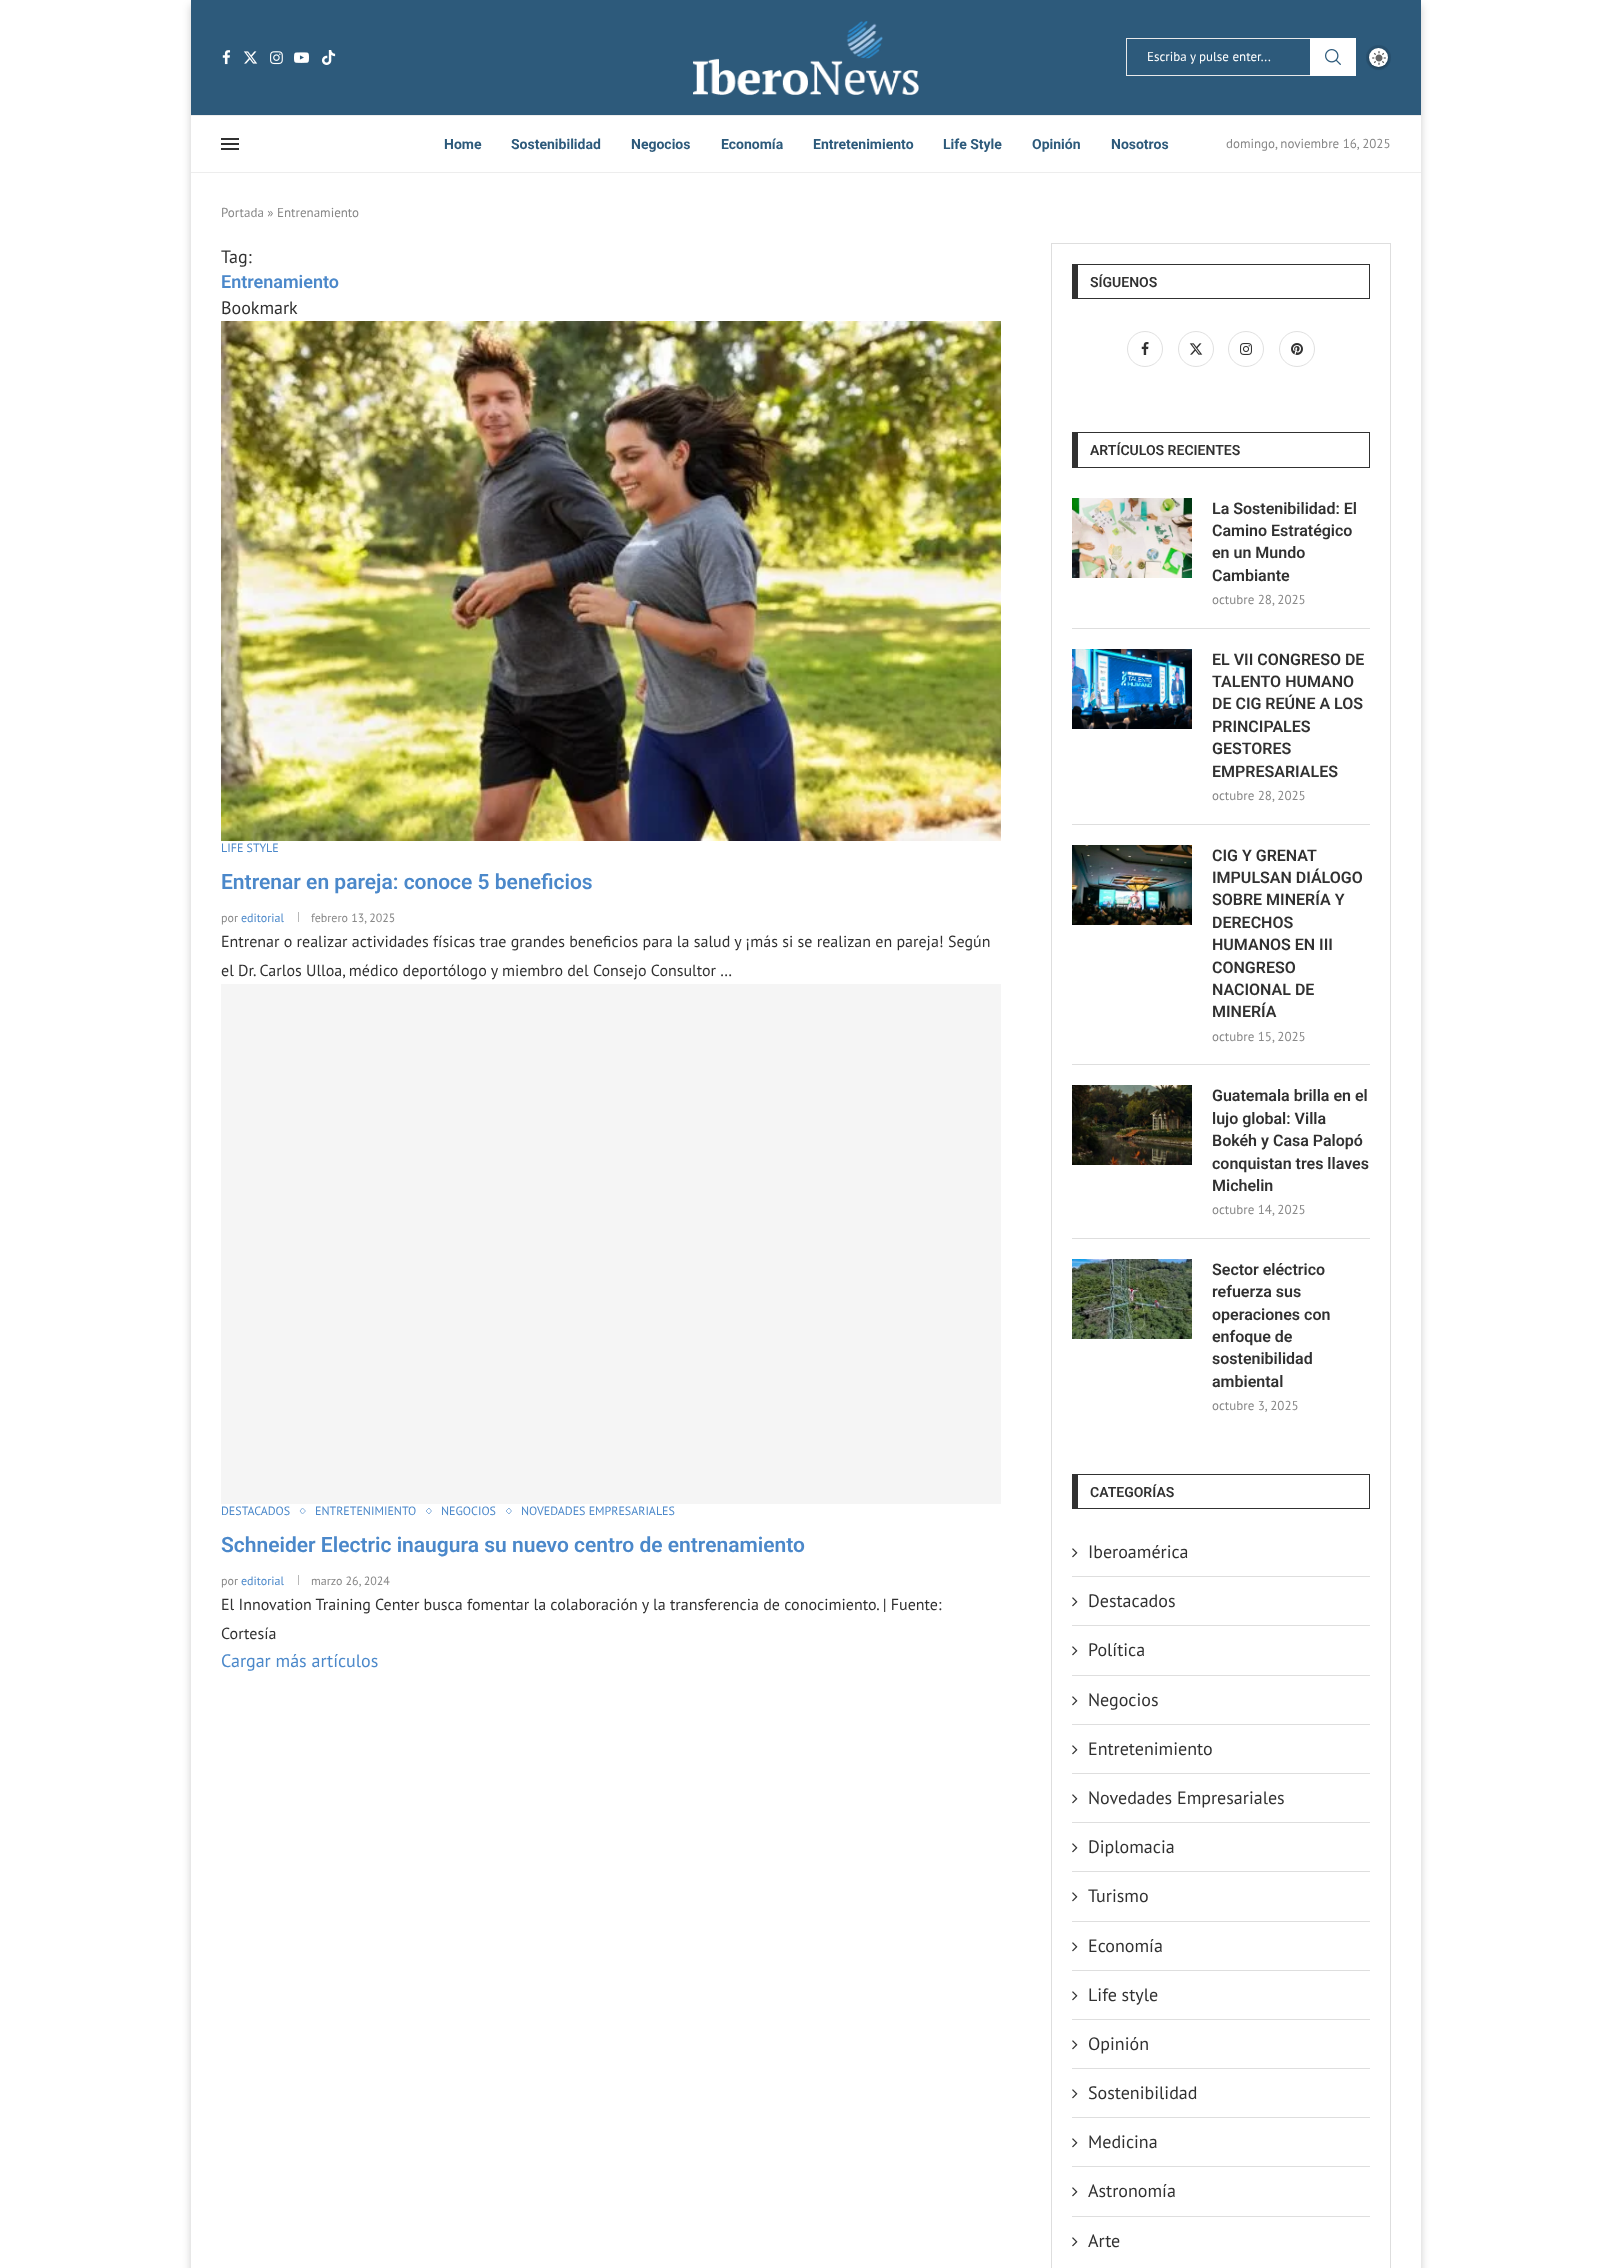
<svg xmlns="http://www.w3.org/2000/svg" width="1612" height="2268">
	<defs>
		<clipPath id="clip1"><path d="M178 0H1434V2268H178ZM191 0H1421V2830H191Z" clip-rule="evenodd" /></clipPath>
	</defs>
	<rect width="100%" height="100%" fill="#FFFFFF" />
	<g clip-path="url(#clip1)">
		<rect x="191" y="5" width="1230" height="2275" fill="#000000" fill-opacity="0.2" filter="blur(4px)" />
	</g>
	<rect x="191" y="0" width="1230" height="115" fill="#2D5A7B" />
	<image x="222" y="50" width="9" height="15" href="assets/img1.png" />
	<image x="243" y="51" width="15" height="13" href="assets/img2.png" />
	<image x="270" y="51" width="13" height="14" href="assets/img3.png" />
	<image x="294" y="52" width="15" height="11" href="assets/img4.png" />
	<image x="321" y="50" width="15" height="15" href="assets/img5.png" />
	<image x="693" y="21" width="226" height="74" href="assets/img6.png" />
	<rect x="1126" y="38" width="184" height="1" fill="#E9E9E9" />
	<rect x="1126" y="75" width="184" height="1" fill="#E9E9E9" />
	<rect x="1126" y="38" width="1" height="38" fill="#E9E9E9" />
	<text x="1147" y="61" font-family="PT Sans" font-size="13" fill="#FFFFFF">Escriba y pulse enter...</text>
	<rect x="1310" y="38" width="46" height="38" fill="#FFFFFF" />
	<image x="1325" y="49" width="16" height="16" href="assets/img7.png" />
	<circle cx="1378.5" cy="57.5" r="12.5" fill="#29516F" />
	<rect x="1369" y="49" width="19" height="19" rx="9.5" fill="#000000" fill-opacity="0.3" filter="blur(1.5px)" />
	<circle cx="1378.5" cy="57.5" r="9.5" fill="#FFFFFF" />
	<image x="1372" y="51" width="14" height="14" href="assets/img8.png" />
	<rect x="191" y="115" width="1230" height="1" fill="#EDEDED" />
	<rect x="191" y="172" width="1230" height="1" fill="#EDEDED" />
	<rect x="221" y="138" width="18" height="2" fill="#313131" />
	<rect x="221" y="148" width="18" height="2" fill="#313131" />
	<rect x="221" y="143" width="18" height="2" fill="#313131" />
	<g font-family="Roboto" font-size="14" font-weight="700" fill="#2D5A7B">
		<text x="444" y="149">Home</text>
		<text x="511" y="149">Sostenibilidad</text>
		<text x="631" y="149">Negocios</text>
		<text x="721" y="149">Economía</text>
		<text x="813" y="149">Entretenimiento</text>
		<text x="943" y="149">Life Style</text>
		<text x="1032" y="149">Opinión</text>
		<text x="1111" y="149">Nosotros</text>
	</g>
	<g font-family="PT Sans" font-size="13" fill="#888888">
		<text x="1226" y="148">domingo, noviembre 16, 2025</text>
		<text x="221" y="217">Portada » Entrenamiento</text>
	</g>
	<text x="221" y="263" font-family="PT Sans" font-size="18" fill="#313131">Tag:</text>
	<text x="221" y="288" font-family="Roboto" font-size="18" font-weight="600" fill="#4B88CA">Entrenamiento</text>
	<text x="221" y="314" font-family="PT Sans" font-size="18" fill="#313131">Bookmark</text>
	<image x="221" y="321" width="780" height="520" href="assets/img9.png" />
	<text x="221" y="852" font-family="PT Sans" font-size="12" fill="#4B88CA">LIFE STYLE</text>
	<text x="221" y="889" font-family="Roboto" font-size="21" font-weight="600" fill="#4B88CA">Entrenar en pareja: conoce 5 beneficios</text>
	<text x="221" y="922" font-family="PT Sans" font-size="12" fill="#888888">por</text>
	<text x="241" y="922" font-family="PT Sans" font-size="12" fill="#4B88CA">editorial</text>
	<rect x="298" y="912" width="1" height="10" fill="#B8B8B8" />
	<text x="311" y="922" font-family="PT Sans" font-size="12" fill="#888888">febrero 13, 2025</text>
	<g font-family="PT Sans" font-size="16" fill="#313131">
		<text x="221" y="947">Entrenar o realizar actividades físicas trae grandes beneficios para la salud y ¡más si se realizan en pareja! Según</text>
		<text x="221" y="976">el Dr. Carlos Ulloa, médico deportólogo y miembro del Consejo Consultor …</text>
	</g>
	<rect x="221" y="984" width="780" height="520" fill="#F5F5F5" />
	<text x="221" y="1515" font-family="PT Sans" font-size="12" fill="#4B88CA">DESTACADOS</text>
	<path d="M302.5 1508L305.5 1511L302.5 1514L300 1511Z" fill="none" stroke="#8AB2DD" />
	<text x="315" y="1515" font-family="PT Sans" font-size="12" fill="#4B88CA">ENTRETENIMIENTO</text>
	<path d="M429 1508L431.5 1511L429 1514L426 1511Z" fill="none" stroke="#8AB2DD" />
	<text x="441" y="1515" font-family="PT Sans" font-size="12" fill="#4B88CA">NEGOCIOS</text>
	<path d="M509 1508L511.5 1511L509 1514L506 1511Z" fill="none" stroke="#8AB2DD" />
	<text x="521" y="1515" font-family="PT Sans" font-size="12" fill="#4B88CA">NOVEDADES EMPRESARIALES</text>
	<text x="221" y="1552" font-family="Roboto" font-size="21" font-weight="600" fill="#4B88CA">Schneider Electric inaugura su nuevo centro de entrenamiento</text>
	<text x="221" y="1585" font-family="PT Sans" font-size="12" fill="#888888">por</text>
	<text x="241" y="1585" font-family="PT Sans" font-size="12" fill="#4B88CA">editorial</text>
	<rect x="298" y="1575" width="1" height="10" fill="#B8B8B8" />
	<text x="311" y="1585" font-family="PT Sans" font-size="12" fill="#888888">marzo 26, 2024</text>
	<g font-family="PT Sans" font-size="16" fill="#313131">
		<text x="221" y="1610">El Innovation Training Center busca fomentar la colaboración y la transferencia de conocimiento. | Fuente:</text>
		<text x="221" y="1639">Cortesía</text>
	</g>
	<text x="221" y="1667" font-family="PT Sans" font-size="18" fill="#4B88CA">Cargar más artículos</text>
	<rect x="1051.5" y="243.5" width="339" height="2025" fill="none" stroke="#DEDEDE" />
	<rect x="1072" y="264" width="298" height="1" fill="#313131" />
	<rect x="1369" y="264" width="1" height="35" fill="#313131" />
	<rect x="1072" y="298" width="298" height="1" fill="#313131" />
	<rect x="1072" y="264" width="6" height="35" fill="#313131" />
	<text x="1090" y="287" font-family="Roboto" font-size="14" font-weight="600" fill="#313131">SÍGUENOS</text>
	<circle cx="1145" cy="349" r="17.5" fill="none" stroke="#E0E0E0" />
	<image x="1141" y="342" width="8" height="13" href="assets/img10.png" />
	<circle cx="1196" cy="349" r="17.5" fill="none" stroke="#E0E0E0" />
	<image x="1189" y="343" width="14" height="12" href="assets/img11.png" />
	<circle cx="1246" cy="349" r="17.5" fill="none" stroke="#E0E0E0" />
	<image x="1240" y="343" width="12" height="12" href="assets/img12.png" />
	<circle cx="1297" cy="349" r="17.5" fill="none" stroke="#E0E0E0" />
	<image x="1291" y="343" width="12" height="12" href="assets/img13.png" />
	<rect x="1072" y="432" width="298" height="1" fill="#313131" />
	<rect x="1369" y="432" width="1" height="36" fill="#313131" />
	<rect x="1072" y="467" width="298" height="1" fill="#313131" />
	<rect x="1072" y="432" width="6" height="36" fill="#313131" />
	<text x="1090" y="455" font-family="Roboto" font-size="14" font-weight="600" fill="#313131">ARTÍCULOS RECIENTES</text>
	<rect x="1072" y="628" width="298" height="1" fill="#DEDEDE" />
	<image x="1072" y="498" width="120" height="80" href="assets/img14.png" />
	<g font-family="Roboto" font-size="16" font-weight="600" fill="#313131">
		<text x="1212" y="514">La Sostenibilidad: El</text>
		<text x="1212" y="536">Camino Estratégico</text>
		<text x="1212" y="558">en un Mundo</text>
		<text x="1212" y="581">Cambiante</text>
	</g>
	<text x="1212" y="604" font-family="PT Sans" font-size="13" fill="#888888">octubre 28, 2025</text>
	<rect x="1072" y="824" width="298" height="1" fill="#DEDEDE" />
	<image x="1072" y="649" width="120" height="80" href="assets/img15.png" />
	<g font-family="Roboto" font-size="16" font-weight="600" fill="#313131">
		<text x="1212" y="665">EL VII CONGRESO DE</text>
		<text x="1212" y="687">TALENTO HUMANO</text>
		<text x="1212" y="709">DE CIG REÚNE A LOS</text>
		<text x="1212" y="732">PRINCIPALES</text>
		<text x="1212" y="754">GESTORES</text>
		<text x="1212" y="777">EMPRESARIALES</text>
	</g>
	<text x="1212" y="800" font-family="PT Sans" font-size="13" fill="#888888">octubre 28, 2025</text>
	<rect x="1072" y="1064" width="298" height="1" fill="#DEDEDE" />
	<image x="1072" y="845" width="120" height="80" href="assets/img16.png" />
	<g font-family="Roboto" font-size="16" font-weight="600" fill="#313131">
		<text x="1212" y="861">CIG Y GRENAT</text>
		<text x="1212" y="883">IMPULSAN DIÁLOGO</text>
		<text x="1212" y="905">SOBRE MINERÍA Y</text>
		<text x="1212" y="928">DERECHOS</text>
		<text x="1212" y="950">HUMANOS EN III</text>
		<text x="1212" y="973">CONGRESO</text>
		<text x="1212" y="995">NACIONAL DE</text>
		<text x="1212" y="1017">MINERÍA</text>
	</g>
	<text x="1212" y="1041" font-family="PT Sans" font-size="13" fill="#888888">octubre 15, 2025</text>
	<rect x="1072" y="1238" width="298" height="1" fill="#DEDEDE" />
	<image x="1072" y="1085" width="120" height="80" href="assets/img17.png" />
	<g font-family="Roboto" font-size="16" font-weight="600" fill="#313131">
		<text x="1212" y="1101">Guatemala brilla en el</text>
		<text x="1212" y="1124">lujo global: Villa</text>
		<text x="1212" y="1146">Bokéh y Casa Palopó</text>
		<text x="1212" y="1169">conquistan tres llaves</text>
		<text x="1212" y="1191">Michelin</text>
	</g>
	<text x="1212" y="1214" font-family="PT Sans" font-size="13" fill="#888888">octubre 14, 2025</text>
	<image x="1072" y="1259" width="120" height="80" href="assets/img18.png" />
	<g font-family="Roboto" font-size="16" font-weight="600" fill="#313131">
		<text x="1212" y="1275">Sector eléctrico</text>
		<text x="1212" y="1297">refuerza sus</text>
		<text x="1212" y="1320">operaciones con</text>
		<text x="1212" y="1342">enfoque de</text>
		<text x="1212" y="1364">sostenibilidad</text>
		<text x="1212" y="1387">ambiental</text>
	</g>
	<text x="1212" y="1410" font-family="PT Sans" font-size="13" fill="#888888">octubre 3, 2025</text>
	<rect x="1072" y="1474" width="298" height="1" fill="#313131" />
	<rect x="1369" y="1474" width="1" height="35" fill="#313131" />
	<rect x="1072" y="1508" width="298" height="1" fill="#313131" />
	<rect x="1072" y="1474" width="6" height="35" fill="#313131" />
	<text x="1090" y="1497" font-family="Roboto" font-size="14" font-weight="600" fill="#313131">CATEGORÍAS</text>
	<rect x="1072" y="1576" width="298" height="1" fill="#DEDEDE" />
	<image x="1072" y="1548" width="6" height="10" href="assets/img19.png" />
	<text x="1088" y="1558" font-family="PT Sans" font-size="18" fill="#313131">Iberoamérica</text>
	<rect x="1072" y="1625" width="298" height="1" fill="#DEDEDE" />
	<image x="1072" y="1597" width="6" height="10" href="assets/img19.png" />
	<text x="1088" y="1607" font-family="PT Sans" font-size="18" fill="#313131">Destacados</text>
	<rect x="1072" y="1675" width="298" height="1" fill="#DEDEDE" />
	<image x="1072" y="1646" width="6" height="10" href="assets/img19.png" />
	<text x="1088" y="1656" font-family="PT Sans" font-size="18" fill="#313131">Política</text>
	<rect x="1072" y="1724" width="298" height="1" fill="#DEDEDE" />
	<image x="1072" y="1696" width="6" height="10" href="assets/img19.png" />
	<text x="1088" y="1706" font-family="PT Sans" font-size="18" fill="#313131">Negocios</text>
	<rect x="1072" y="1773" width="298" height="1" fill="#DEDEDE" />
	<image x="1072" y="1745" width="6" height="10" href="assets/img19.png" />
	<text x="1088" y="1755" font-family="PT Sans" font-size="18" fill="#313131">Entretenimiento</text>
	<rect x="1072" y="1822" width="298" height="1" fill="#DEDEDE" />
	<image x="1072" y="1794" width="6" height="10" href="assets/img19.png" />
	<text x="1088" y="1804" font-family="PT Sans" font-size="18" fill="#313131">Novedades Empresariales</text>
	<rect x="1072" y="1871" width="298" height="1" fill="#DEDEDE" />
	<image x="1072" y="1843" width="6" height="10" href="assets/img19.png" />
	<text x="1088" y="1853" font-family="PT Sans" font-size="18" fill="#313131">Diplomacia</text>
	<rect x="1072" y="1921" width="298" height="1" fill="#DEDEDE" />
	<image x="1072" y="1892" width="6" height="10" href="assets/img19.png" />
	<text x="1088" y="1902" font-family="PT Sans" font-size="18" fill="#313131">Turismo</text>
	<rect x="1072" y="1970" width="298" height="1" fill="#DEDEDE" />
	<image x="1072" y="1942" width="6" height="10" href="assets/img19.png" />
	<text x="1088" y="1952" font-family="PT Sans" font-size="18" fill="#313131">Economía</text>
	<rect x="1072" y="2019" width="298" height="1" fill="#DEDEDE" />
	<image x="1072" y="1991" width="6" height="10" href="assets/img19.png" />
	<text x="1088" y="2001" font-family="PT Sans" font-size="18" fill="#313131">Life style</text>
	<rect x="1072" y="2068" width="298" height="1" fill="#DEDEDE" />
	<image x="1072" y="2040" width="6" height="10" href="assets/img19.png" />
	<text x="1088" y="2050" font-family="PT Sans" font-size="18" fill="#313131">Opinión</text>
	<rect x="1072" y="2117" width="298" height="1" fill="#DEDEDE" />
	<image x="1072" y="2089" width="6" height="10" href="assets/img19.png" />
	<text x="1088" y="2099" font-family="PT Sans" font-size="18" fill="#313131">Sostenibilidad</text>
	<rect x="1072" y="2166" width="298" height="1" fill="#DEDEDE" />
	<image x="1072" y="2138" width="6" height="10" href="assets/img19.png" />
	<text x="1088" y="2148" font-family="PT Sans" font-size="18" fill="#313131">Medicina</text>
	<rect x="1072" y="2216" width="298" height="1" fill="#DEDEDE" />
	<image x="1072" y="2187" width="6" height="10" href="assets/img19.png" />
	<text x="1088" y="2197" font-family="PT Sans" font-size="18" fill="#313131">Astronomía</text>
	<image x="1072" y="2237" width="6" height="10" href="assets/img19.png" />
	<text x="1088" y="2247" font-family="PT Sans" font-size="18" fill="#313131">Arte</text>
</svg>
